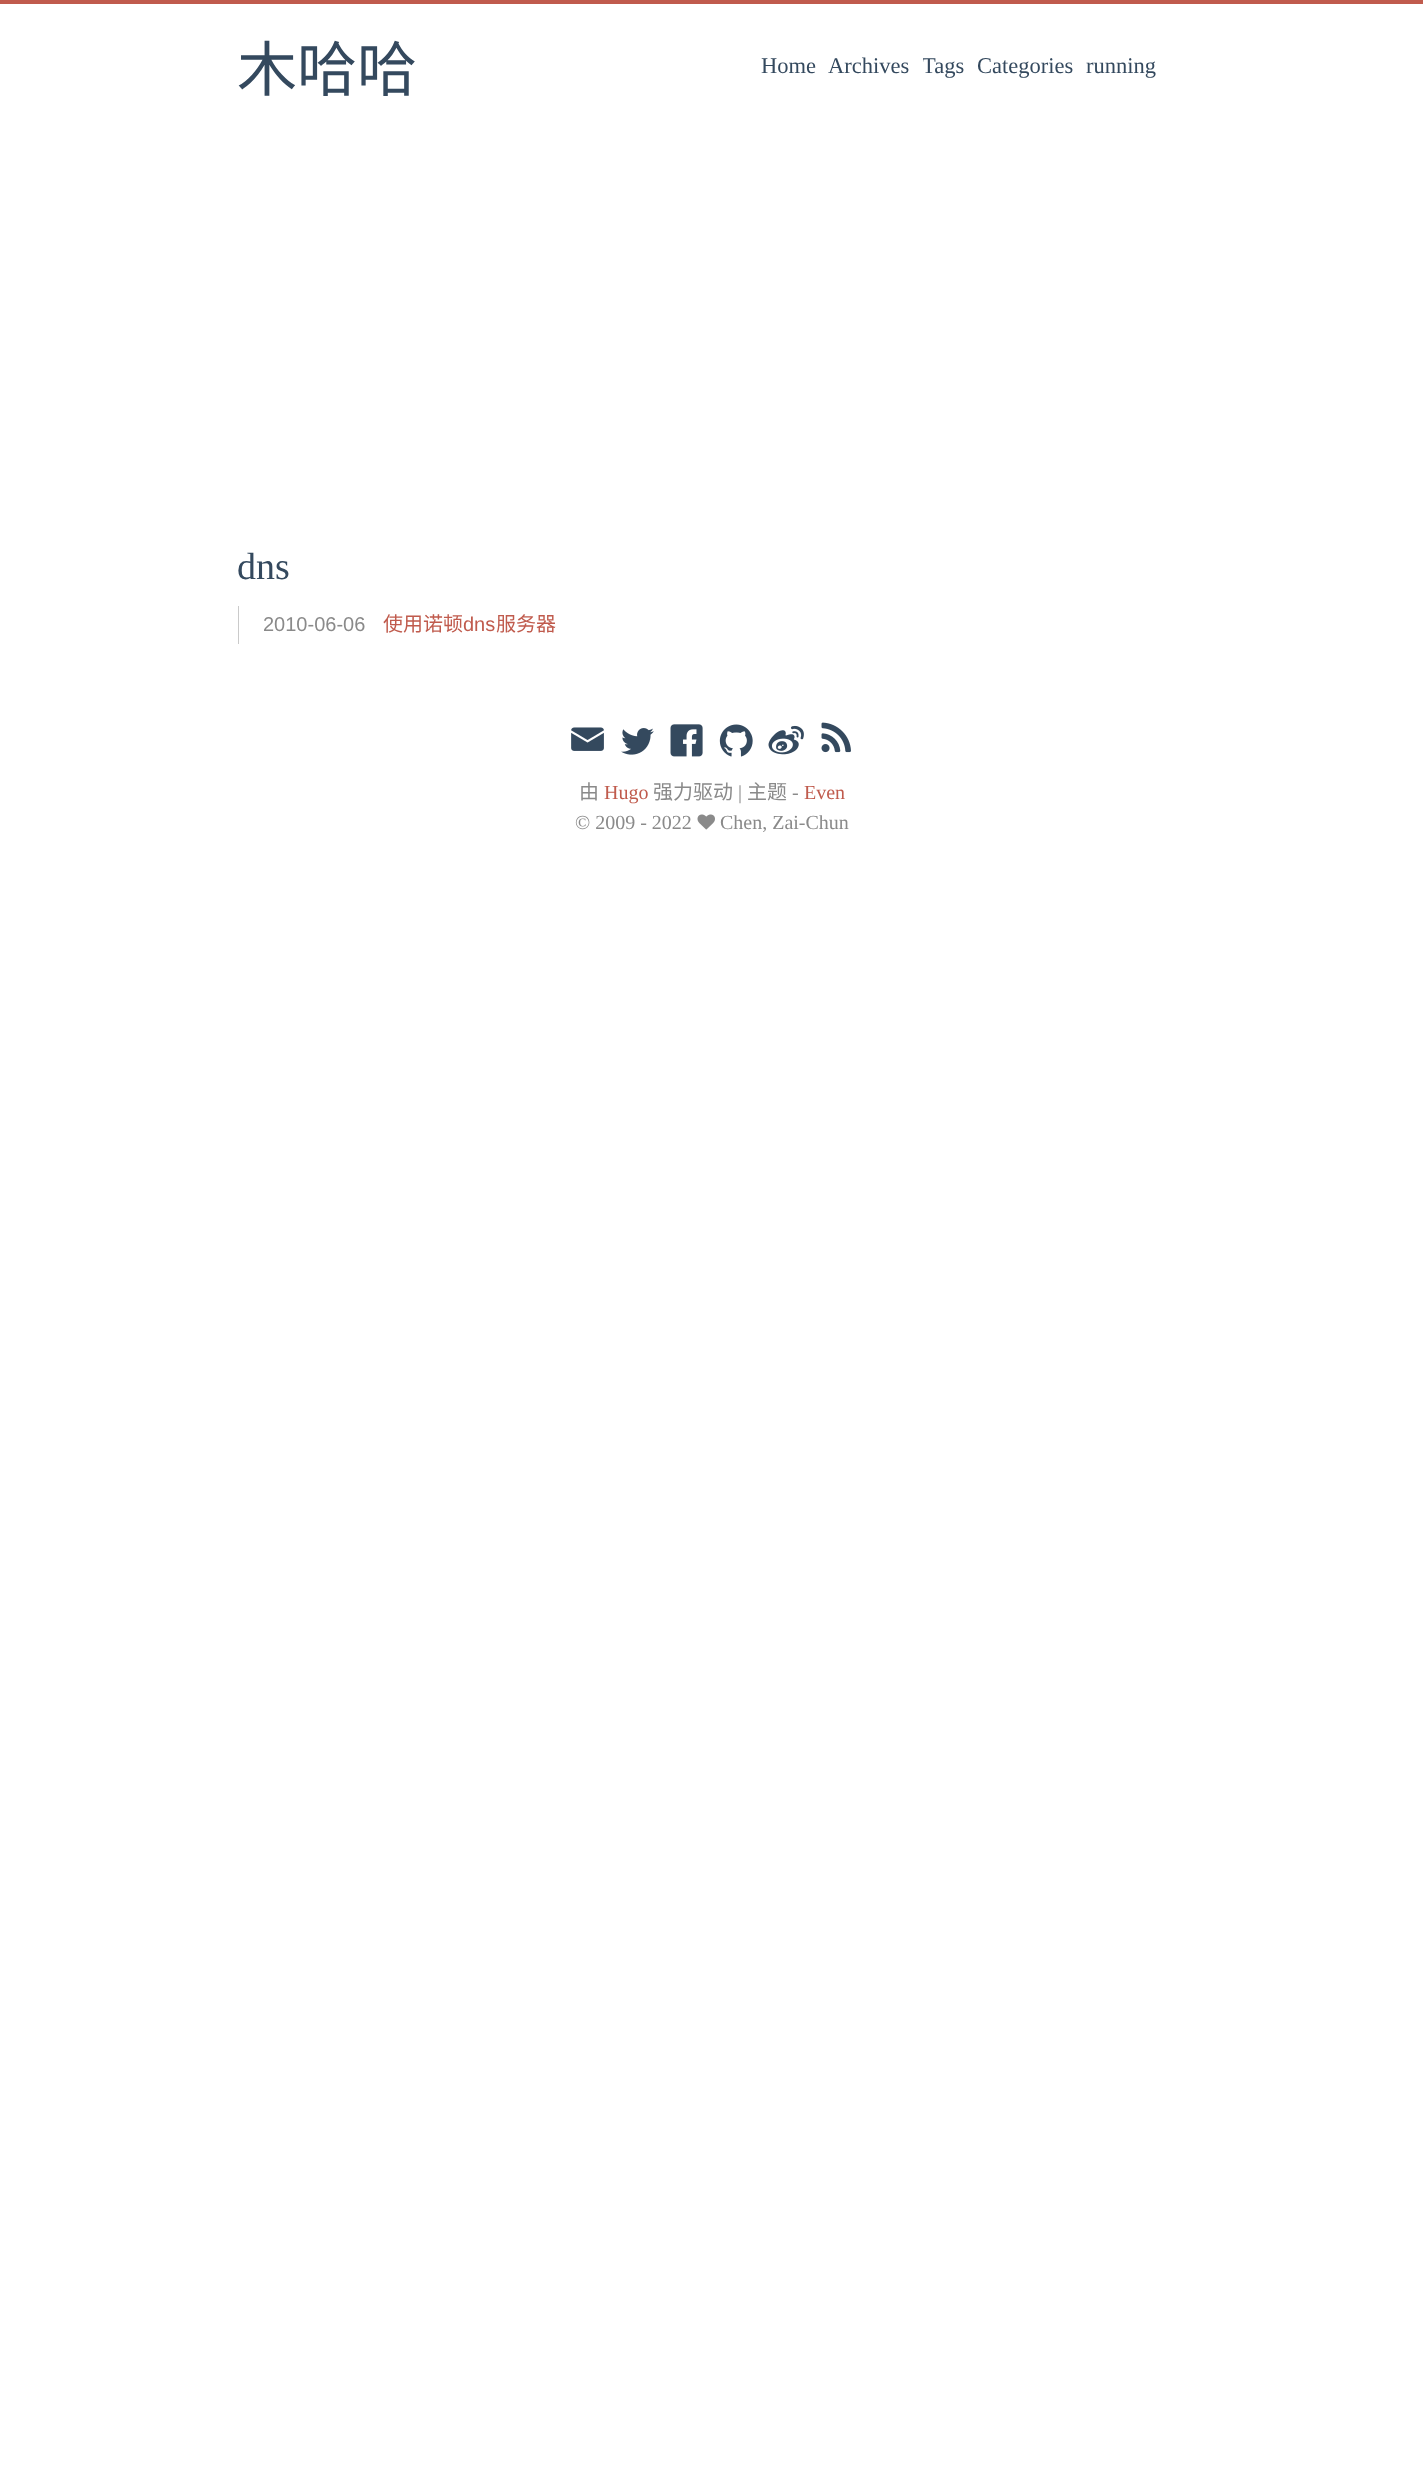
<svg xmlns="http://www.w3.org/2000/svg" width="1423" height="2475">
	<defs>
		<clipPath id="clip1"><rect x="923" y="49" width="42" height="34" /></clipPath>
		<clipPath id="clip2"><rect x="978" y="49" width="96" height="34" /></clipPath>
	</defs>
	<rect width="100%" height="100%" fill="#FFFFFF" />
	<rect x="0" y="0" width="1423" height="4" fill="#C05B4D" />
	<text x="237" y="91" font-family="Noto Sans CJK SC" font-size="60" fill="#34495E">木哈哈</text>
	<g font-family="Liberation Serif" font-size="22.5" fill="#34495E">
		<text x="761" y="73">Home</text>
		<text x="828" y="73">Archives</text>
	</g>
	<g clip-path="url(#clip1)">
		<text x="922" y="73" font-family="Liberation Serif" font-size="22.5" fill="#34495E">Tags</text>
	</g>
	<g clip-path="url(#clip2)">
		<text x="977" y="73" font-family="Liberation Serif" font-size="22.5" fill="#34495E">Categories</text>
	</g>
	<text x="1086" y="73" font-family="Liberation Serif" font-size="22.5" fill="#34495E">running</text>
	<text x="237" y="579" font-family="Liberation Serif" font-size="38" fill="#34495E">dns</text>
	<rect x="238" y="606" width="1" height="38" fill="#CACACA" />
	<text x="263" y="631" font-family="Liberation Sans" font-size="20" fill="#8A8A8A">2010-06-06</text>
	<text x="383" y="631" font-family="Noto Sans CJK SC" font-size="20" fill="#C05B4D">使用诺顿</text>
	<text x="463" y="631" font-family="Liberation Sans" font-size="20" fill="#C05B4D">dns</text>
	<text x="496" y="631" font-family="Noto Sans CJK SC" font-size="20" fill="#C05B4D">服务器</text>
	<image x="571" y="727" width="33" height="24" href="assets/img1.png" />
	<image x="621" y="728" width="33" height="27" href="assets/img2.png" />
	<image x="670" y="724" width="33" height="33" href="assets/img3.png" />
	<image x="719" y="724" width="34" height="33" href="assets/img4.png" />
	<image x="768" y="725" width="36" height="30" href="assets/img5.png" />
	<image x="821" y="722" width="30" height="31" href="assets/img6.png" />
	<text x="579" y="799" font-family="Noto Sans CJK SC" font-size="20" fill="#8A8A8A">由</text>
	<text x="604" y="799" font-family="Liberation Serif" font-size="20" fill="#C05B4D">Hugo</text>
	<text x="653" y="799" font-family="Noto Sans CJK SC" font-size="20" fill="#8A8A8A">强力驱动</text>
	<text x="738" y="799" font-family="Liberation Serif" font-size="20" fill="#8A8A8A">|</text>
	<text x="747" y="799" font-family="Noto Sans CJK SC" font-size="20" fill="#8A8A8A">主题</text>
	<text x="792" y="799" font-family="Liberation Serif" font-size="20" fill="#8A8A8A">-</text>
	<text x="804" y="799" font-family="Liberation Serif" font-size="20" fill="#C05B4D">Even</text>
	<text x="575" y="829" font-family="Liberation Serif" font-size="20" fill="#8A8A8A">© 2009 - 2022</text>
	<image x="697" y="814" width="18" height="16" href="assets/img7.png" />
	<text x="720" y="829" font-family="Liberation Serif" font-size="20" fill="#8A8A8A">Chen, Zai-Chun</text>
</svg>
